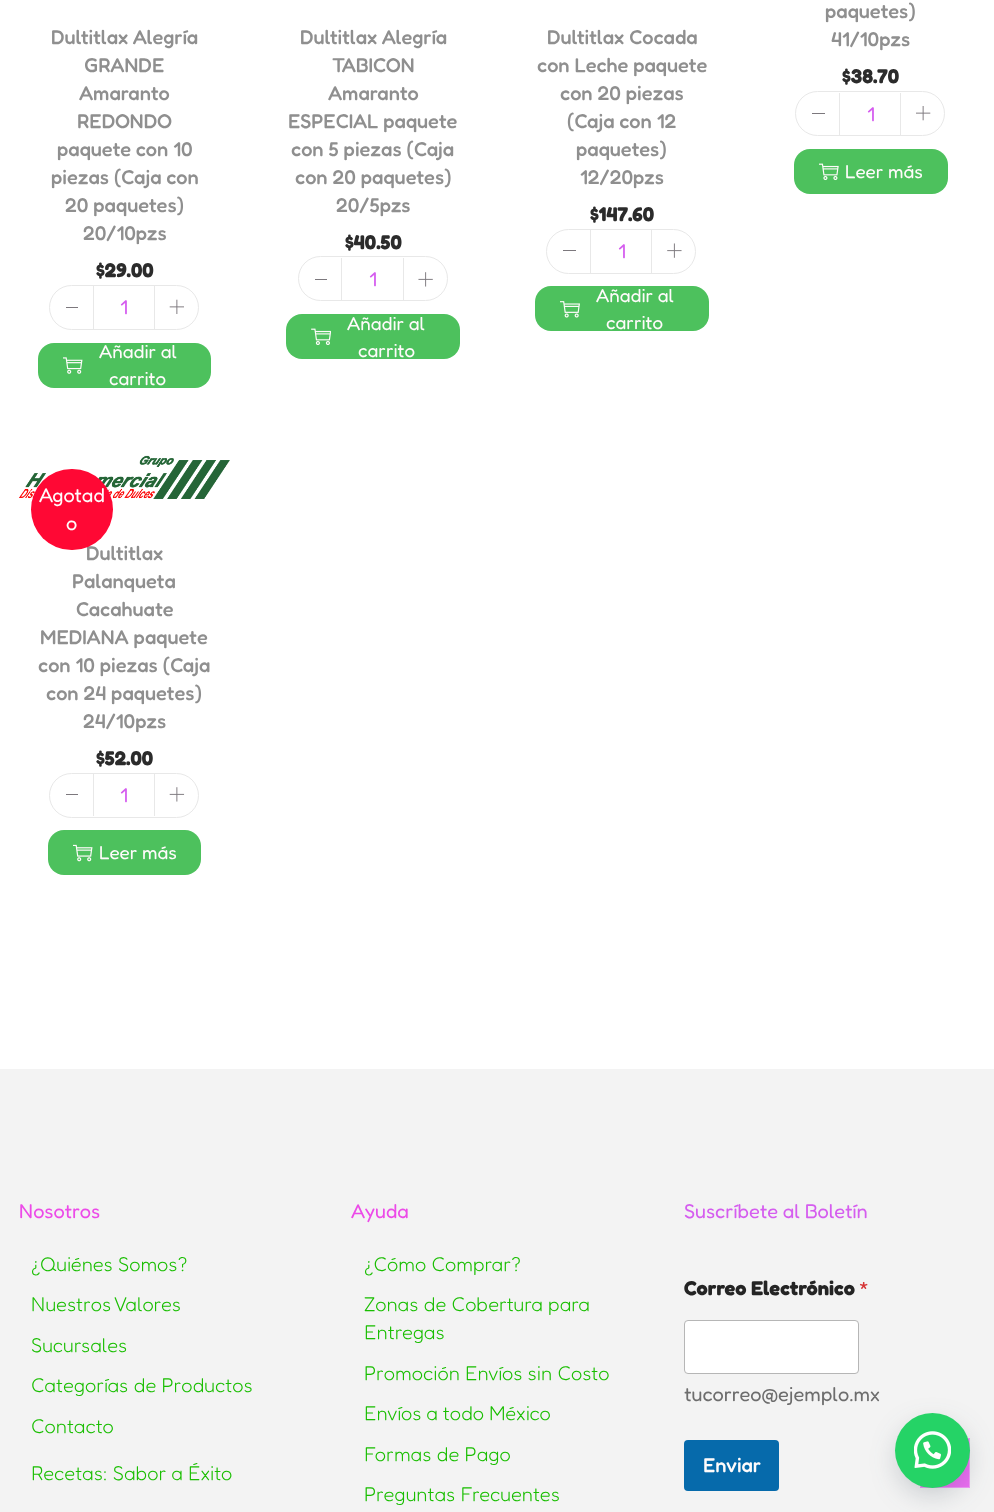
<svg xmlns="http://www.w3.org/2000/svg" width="994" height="1512">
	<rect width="100%" height="100%" fill="#FFFFFF" />
	<g font-family="Fredoka" font-size="20" font-weight="500" fill="#8F8F8F">
		<text x="51" y="44">Dultitlax Alegría</text>
		<text x="84" y="72">GRANDE</text>
		<text x="79" y="100">Amaranto</text>
		<text x="77" y="128">REDONDO</text>
		<text x="57" y="156">paquete con 10</text>
		<text x="51" y="184">piezas (Caja con</text>
		<text x="65" y="212">20 paquetes)</text>
		<text x="83" y="240">20/10pzs</text>
	</g>
	<text x="96" y="277" font-family="Fredoka" font-size="20" font-weight="700" fill="#2B2B2B">$29.00</text>
	<rect x="49.5" y="285.5" width="149" height="44" rx="22" fill="none" stroke="#E8E8E8" />
	<rect x="93" y="286" width="1" height="43" fill="#E8E8E8" />
	<rect x="66" y="307" width="12" height="1" fill="#7C787D" />
	<text x="120" y="314" font-family="Fredoka" font-size="20" fill="#D55DEF">1</text>
	<rect x="154" y="286" width="1" height="43" fill="#E8E8E8" />
	<image x="169" y="299" width="15" height="15" href="assets/img1.png" />
	<rect x="38" y="343" width="173" height="45" rx="16" fill="#4DC15D" />
	<text x="99" y="358" font-family="Fredoka" font-size="18.75" fill="#FFFBFB">Añadir al</text>
	<image x="63" y="357" width="20" height="17" href="assets/img2.png" />
	<text x="109" y="385" font-family="Fredoka" font-size="18.75" fill="#FFFBFB">carrito</text>
	<g font-family="Fredoka" font-size="20" font-weight="500" fill="#8F8F8F">
		<text x="300" y="44">Dultitlax Alegría</text>
		<text x="332" y="72">TABICON</text>
		<text x="328" y="100">Amaranto</text>
		<text x="288" y="128">ESPECIAL paquete</text>
		<text x="291" y="156">con 5 piezas (Caja</text>
		<text x="295" y="184">con 20 paquetes)</text>
		<text x="336" y="212">20/5pzs</text>
	</g>
	<text x="345" y="249" font-family="Fredoka" font-size="20" font-weight="700" fill="#2B2B2B">$40.50</text>
	<rect x="298.5" y="256.5" width="149" height="44" rx="22" fill="none" stroke="#E8E8E8" />
	<rect x="341" y="258" width="1" height="42" fill="#E8E8E8" />
	<rect x="315" y="279" width="12" height="1" fill="#7C787D" />
	<text x="369" y="286" font-family="Fredoka" font-size="20" fill="#D55DEF">1</text>
	<rect x="403" y="258" width="1" height="42" fill="#E8E8E8" />
	<image x="418" y="272" width="15" height="15" href="assets/img3.png" />
	<rect x="286" y="314" width="174" height="45" rx="16" fill="#4DC15D" />
	<text x="347" y="330" font-family="Fredoka" font-size="18.75" fill="#FFFBFB">Añadir al</text>
	<image x="311" y="328" width="20" height="17" href="assets/img4.png" />
	<text x="358" y="357" font-family="Fredoka" font-size="18.75" fill="#FFFBFB">carrito</text>
	<g font-family="Fredoka" font-size="20" font-weight="500" fill="#8F8F8F">
		<text x="547" y="44">Dultitlax Cocada</text>
		<text x="537" y="72">con Leche paquete</text>
		<text x="560" y="100">con 20 piezas</text>
		<text x="567" y="128">(Caja con 12</text>
		<text x="576" y="156">paquetes)</text>
		<text x="580" y="184">12/20pzs</text>
	</g>
	<text x="590" y="221" font-family="Fredoka" font-size="20" font-weight="700" fill="#2B2B2B">$147.60</text>
	<rect x="546.5" y="229.5" width="149" height="44" rx="22" fill="none" stroke="#E8E8E8" />
	<rect x="590" y="230" width="1" height="43" fill="#E8E8E8" />
	<rect x="563" y="250" width="13" height="1" fill="#7C787D" />
	<text x="618" y="258" font-family="Fredoka" font-size="20" fill="#D55DEF">1</text>
	<rect x="651" y="230" width="1" height="43" fill="#E8E8E8" />
	<image x="667" y="243" width="15" height="15" href="assets/img5.png" />
	<rect x="535" y="286" width="174" height="45" rx="16" fill="#4DC15D" />
	<text x="596" y="302" font-family="Fredoka" font-size="18.75" fill="#FFFBFB">Añadir al</text>
	<image x="560" y="301" width="20" height="17" href="assets/img6.png" />
	<text x="606" y="329" font-family="Fredoka" font-size="18.75" fill="#FFFBFB">carrito</text>
	<g font-family="Fredoka" font-size="20" font-weight="500" fill="#8F8F8F">
		<text x="825" y="18">paquetes)</text>
		<text x="831" y="46">41/10pzs</text>
	</g>
	<text x="842" y="83" font-family="Fredoka" font-size="20" font-weight="700" fill="#2B2B2B">$38.70</text>
	<rect x="795.5" y="91.5" width="149" height="44" rx="22" fill="none" stroke="#E8E8E8" />
	<rect x="839" y="93" width="1" height="42" fill="#E8E8E8" />
	<rect x="812" y="113" width="13" height="1" fill="#7C787D" />
	<text x="867" y="121" font-family="Fredoka" font-size="20" fill="#D55DEF">1</text>
	<rect x="900" y="93" width="1" height="42" fill="#E8E8E8" />
	<image x="916" y="106" width="15" height="15" href="assets/img7.png" />
	<rect x="794" y="149" width="154" height="45" rx="16" fill="#4DC15D" />
	<image x="819" y="163" width="20" height="18" href="assets/img8.png" />
	<text x="845" y="178" font-family="Fredoka" font-size="18.75" fill="#FFFBFB">Leer más</text>
	<image x="19" y="455" width="211" height="44" href="assets/img9.png" />
	<text x="86" y="560" font-family="Fredoka" font-size="20" font-weight="500" fill="#8F8F8F">Dultitlax</text>
	<rect x="31" y="469" width="82" height="81" rx="40.5" fill="#FF0834" />
	<g font-family="Fredoka" font-size="20" fill="#FFFBFB">
		<text x="39" y="502">Agotad</text>
		<text x="66" y="530">o</text>
	</g>
	<g font-family="Fredoka" font-size="20" font-weight="500" fill="#8F8F8F">
		<text x="72" y="588">Palanqueta</text>
		<text x="76" y="616">Cacahuate</text>
		<text x="40" y="644">MEDIANA paquete</text>
		<text x="38" y="672">con 10 piezas (Caja</text>
		<text x="46" y="700">con 24 paquetes)</text>
		<text x="83" y="728">24/10pzs</text>
	</g>
	<text x="96" y="765" font-family="Fredoka" font-size="20" font-weight="700" fill="#2B2B2B">$52.00</text>
	<rect x="49.5" y="773.5" width="149" height="44" rx="22" fill="none" stroke="#E8E8E8" />
	<rect x="93" y="774" width="1" height="42" fill="#E8E8E8" />
	<rect x="66" y="794" width="12" height="1" fill="#7C787D" />
	<text x="120" y="802" font-family="Fredoka" font-size="20" fill="#D55DEF">1</text>
	<rect x="154" y="774" width="1" height="42" fill="#E8E8E8" />
	<image x="169" y="787" width="16" height="15" href="assets/img10.png" />
	<rect x="48" y="830" width="153" height="45" rx="16" fill="#4DC15D" />
	<image x="73" y="844" width="20" height="18" href="assets/img11.png" />
	<text x="99" y="859" font-family="Fredoka" font-size="18.75" fill="#FFFBFB">Leer más</text>
	<rect x="0" y="1069" width="994" height="443" fill="#F3F3F3" />
	<text x="19" y="1218" font-family="Fredoka" font-size="20" fill="#EC4BE8">Nosotros</text>
	<g font-family="Fredoka" font-size="20" font-weight="300" fill="#19BE01">
		<text x="31" y="1271">¿Quiénes Somos?</text>
		<text x="31" y="1311">Nuestros Valores</text>
		<text x="31" y="1352">Sucursales</text>
		<text x="31" y="1392">Categorías de Productos</text>
		<text x="31" y="1433">Contacto</text>
		<text x="31" y="1480">Recetas: Sabor a Éxito</text>
	</g>
	<text x="351" y="1218" font-family="Fredoka" font-size="20" fill="#EC4BE8">Ayuda</text>
	<g font-family="Fredoka" font-size="20" font-weight="300" fill="#19BE01">
		<text x="364" y="1271">¿Cómo Comprar?</text>
		<text x="364" y="1311">Zonas de Cobertura para</text>
		<text x="364" y="1339">Entregas</text>
		<text x="364" y="1380">Promoción Envíos sin Costo</text>
		<text x="364" y="1420">Envíos a todo México</text>
		<text x="364" y="1461">Formas de Pago</text>
		<text x="364" y="1501">Preguntas Frecuentes</text>
	</g>
	<text x="684" y="1218" font-family="Fredoka" font-size="20" fill="#D55DEF">Suscríbete al Boletín</text>
	<text x="684" y="1295" font-family="Fredoka" font-size="20" font-weight="700" fill="#242424">Correo Electrónico</text>
	<text x="859" y="1295" font-family="Fredoka" font-size="20" fill="#D63637">*</text>
	<rect x="685" y="1321" width="173" height="52" rx="2.5" fill="#FFFFFF" />
	<rect x="684.5" y="1320.5" width="174" height="53" rx="3.5" fill="none" stroke="#B6B6B6" />
	<text x="684" y="1401" font-family="Fredoka" font-size="20" fill="#6D6D6D">tucorreo@ejemplo.mx</text>
	<rect x="684" y="1440" width="95" height="51" rx="4" fill="#066AAB" />
	<text x="703" y="1472" font-family="Fredoka" font-size="20" font-weight="500" fill="#FFFBFB">Enviar</text>
	<rect x="920.5" y="1438.5" width="49" height="49" fill="#EC6DF3" stroke="#F299F7" />
	<rect x="901" y="1429" width="63" height="62" rx="31" fill="#2D3E4F" fill-opacity="0.3" filter="blur(15.5px)" />
	<circle cx="932.5" cy="1450.5" r="37.5" fill="#25D366" />
	<image x="914" y="1431" width="37" height="38" href="assets/img12.png" />
</svg>
